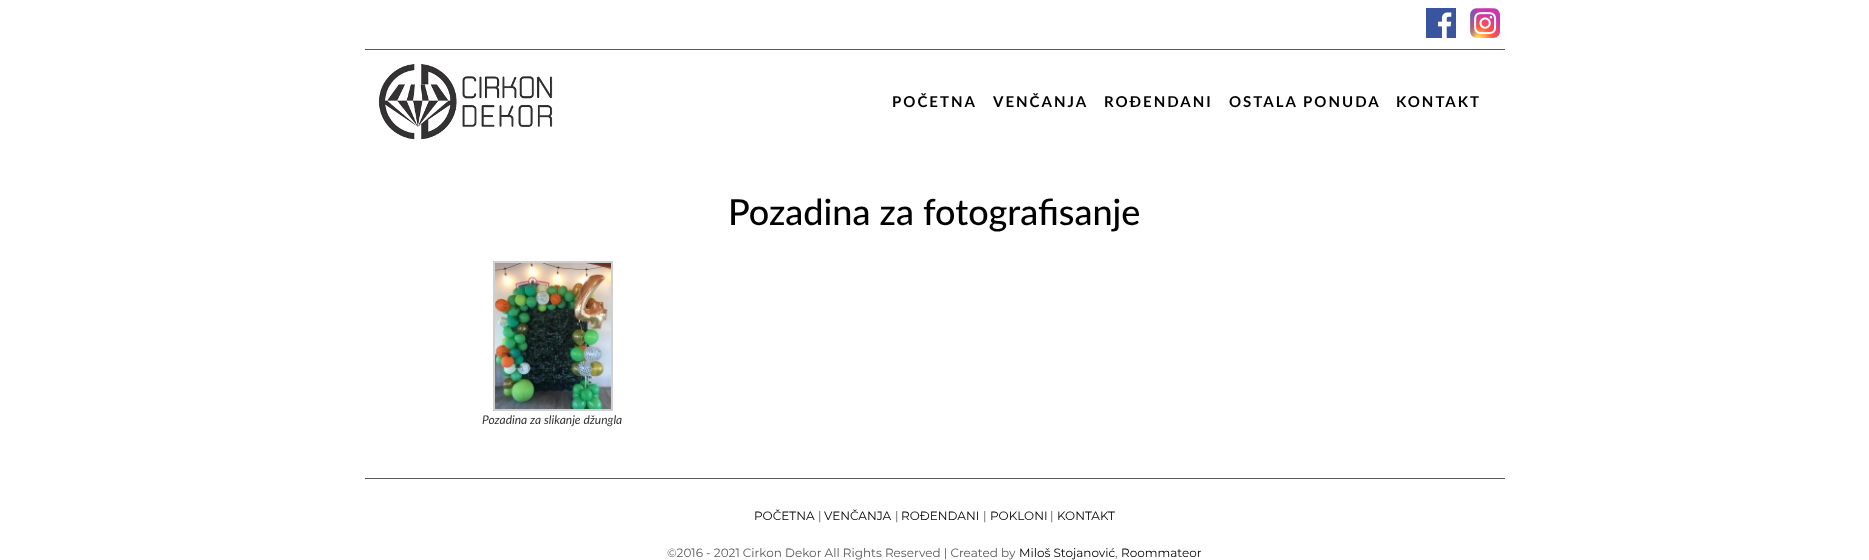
<svg xmlns="http://www.w3.org/2000/svg" width="1869" height="560">
	<rect width="100%" height="100%" fill="#FFFFFF" />
	<rect x="365" y="49" width="1140" height="1" fill="#565A5A" />
	<image x="1426" y="8" width="30" height="30" href="assets/img1.png" />
	<image x="1470" y="8" width="30" height="30" href="assets/img2.png" />
	<image x="378" y="64" width="175" height="76" href="assets/img3.png" />
	<g font-family="Lato" font-size="15" font-weight="700" letter-spacing="2" fill="#000000">
		<text x="892" y="107">POČETNA</text>
		<text x="993" y="107">VENČANJA</text>
		<text x="1104" y="107">ROĐENDANI</text>
		<text x="1229" y="107">OSTALA PONUDA</text>
		<text x="1396" y="107">KONTAKT</text>
	</g>
	<text x="728" y="225" font-family="Lato" font-size="36" font-weight="500" fill="#000000">Pozadina za fotografisanje</text>
	<rect x="494" y="262" width="118" height="148" fill="none" stroke="#CFCFCF" stroke-width="2" />
	<image x="495" y="263" width="116" height="146" href="assets/img4.png" />
	<text x="482" y="424" font-family="Lato" font-size="12" font-style="italic" fill="#333333">Pozadina za slikanje džungla</text>
	<rect x="365" y="478" width="1140" height="1" fill="#565A5A" />
	<text x="754" y="520" font-family="Montserrat" font-size="12" fill="#000000">POČETNA</text>
	<text x="818" y="520" font-family="Montserrat" font-size="12" fill="#585858">|</text>
	<text x="824" y="520" font-family="Montserrat" font-size="12" fill="#000000">VENČANJA</text>
	<text x="895" y="520" font-family="Montserrat" font-size="12" fill="#585858">|</text>
	<text x="901" y="520" font-family="Montserrat" font-size="12" fill="#000000">ROĐENDANI</text>
	<text x="983" y="520" font-family="Montserrat" font-size="12" fill="#585858">|</text>
	<text x="990" y="520" font-family="Montserrat" font-size="12" fill="#000000">POKLONI</text>
	<text x="1050" y="520" font-family="Montserrat" font-size="12" fill="#585858">|</text>
	<text x="1057" y="520" font-family="Montserrat" font-size="12" fill="#000000">KONTAKT</text>
	<text x="667" y="557" font-family="Montserrat" font-size="12" fill="#585858">©2016 - 2021 Cirkon Dekor All Rights Reserved | Created by</text>
	<text x="1019" y="557" font-family="Montserrat" font-size="12" fill="#000000">Miloš Stojanović</text>
	<text x="1115" y="557" font-family="Montserrat" font-size="12" fill="#585858">,</text>
	<text x="1121" y="557" font-family="Montserrat" font-size="12" fill="#000000">Roommateor</text>
</svg>
